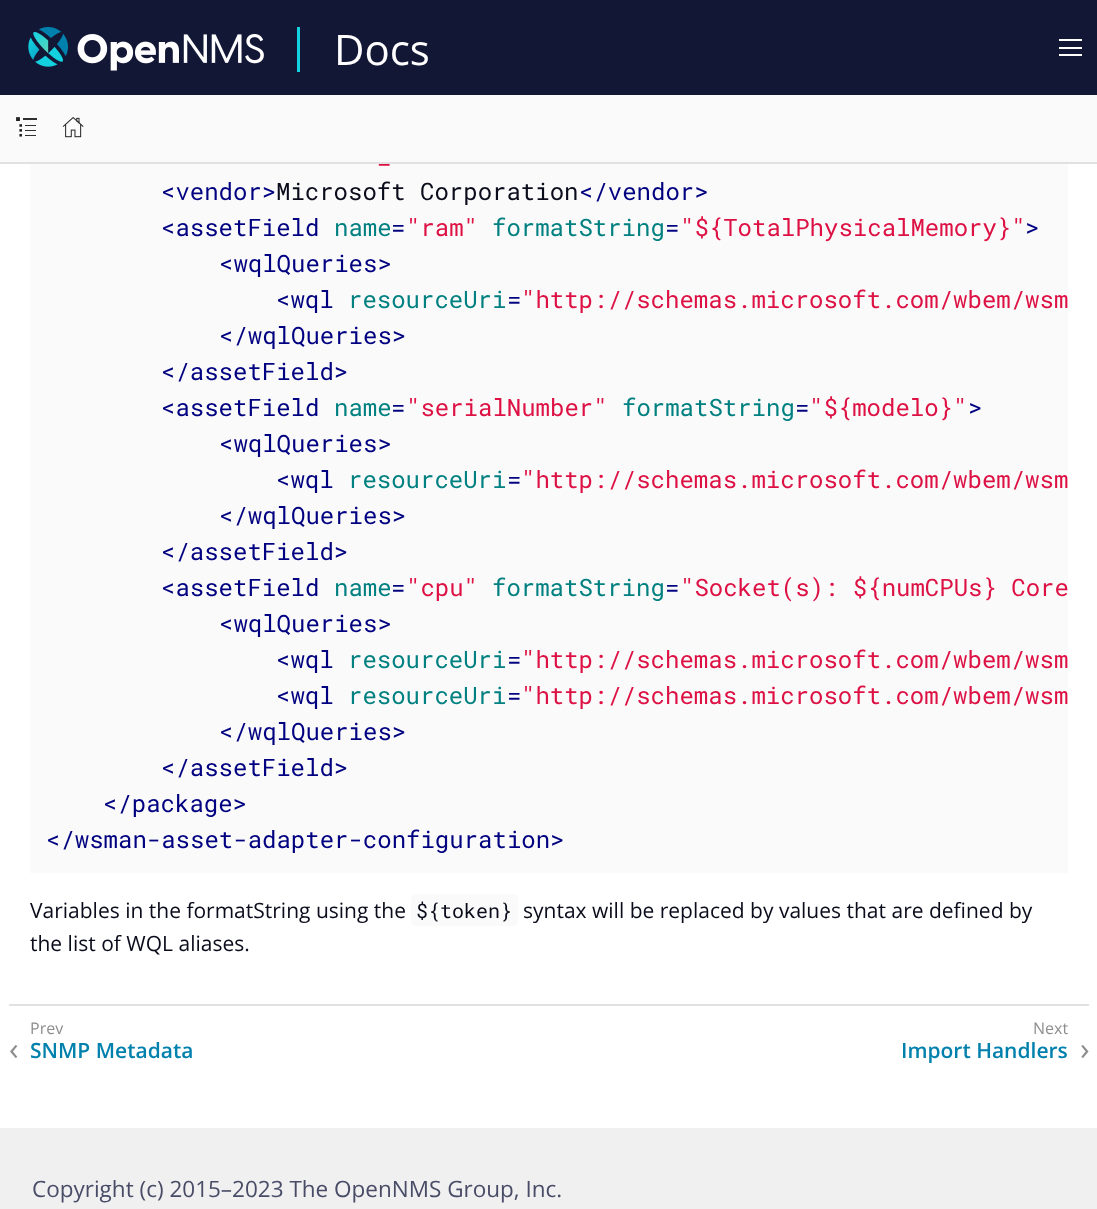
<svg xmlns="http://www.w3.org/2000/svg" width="1097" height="1209">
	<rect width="100%" height="100%" fill="#FFFFFF" />
	<rect x="0" y="0" width="1097" height="95" fill="#131736" />
	<image x="28" y="27" width="236" height="44" href="assets/img1.png" />
	<rect x="297" y="27" width="3" height="45" fill="#14D1DF" />
	<text x="334" y="65" font-family="Open Sans" font-size="42" fill="#FFFFFF">Docs</text>
	<rect x="1059" y="39" width="23" height="2" fill="#FFFFFF" />
	<rect x="1059" y="47" width="23" height="2" fill="#FFFFFF" />
	<rect x="1059" y="54" width="23" height="2" fill="#FFFFFF" />
	<rect x="0" y="162" width="1097" height="2" fill="#E1E1E1" />
	<rect x="0" y="95" width="1097" height="67" fill="#FAFAFA" />
	<image x="16" y="117" width="21" height="20" href="assets/img2.png" />
	<image x="62" y="117" width="22" height="21" href="assets/img3.png" />
	<rect x="30" y="164" width="1038" height="709" fill="#FAFAFA" />
	<text x="377" y="164" font-family="Roboto Mono" font-size="24" fill="#DD1144">_</text>
	<text x="161" y="200" font-family="Roboto Mono" font-size="24" fill="#000080">&lt;vendor&gt;</text>
	<text x="276" y="200" font-family="Roboto Mono" font-size="24" fill="#0A0C1B">Microsoft Corporation</text>
	<g font-family="Roboto Mono" font-size="24" fill="#000080">
		<text x="579" y="200">&lt;/vendor&gt;</text>
		<text x="161" y="236">&lt;assetField</text>
	</g>
	<text x="334" y="236" font-family="Roboto Mono" font-size="24" fill="#008080">name</text>
	<text x="391" y="236" font-family="Roboto Mono" font-size="24" fill="#000080">=</text>
	<text x="406" y="236" font-family="Roboto Mono" font-size="24" fill="#DD1144">"ram"</text>
	<text x="492" y="236" font-family="Roboto Mono" font-size="24" fill="#008080">formatString</text>
	<text x="665" y="236" font-family="Roboto Mono" font-size="24" fill="#000080">=</text>
	<text x="680" y="236" font-family="Roboto Mono" font-size="24" fill="#DD1144">"${TotalPhysicalMemory}"</text>
	<g font-family="Roboto Mono" font-size="24" fill="#000080">
		<text x="1025" y="236">&gt;</text>
		<text x="219" y="272">&lt;wqlQueries&gt;</text>
		<text x="276" y="308">&lt;wql</text>
	</g>
	<text x="348" y="308" font-family="Roboto Mono" font-size="24" fill="#008080">resourceUri</text>
	<text x="507" y="308" font-family="Roboto Mono" font-size="24" fill="#000080">=</text>
	<text x="521" y="308" font-family="Roboto Mono" font-size="24" fill="#DD1144">"http://schemas.microsoft.com/wbem/wsm</text>
	<g font-family="Roboto Mono" font-size="24" fill="#000080">
		<text x="219" y="344">&lt;/wqlQueries&gt;</text>
		<text x="161" y="380">&lt;/assetField&gt;</text>
		<text x="161" y="416">&lt;assetField</text>
	</g>
	<text x="334" y="416" font-family="Roboto Mono" font-size="24" fill="#008080">name</text>
	<text x="391" y="416" font-family="Roboto Mono" font-size="24" fill="#000080">=</text>
	<text x="406" y="416" font-family="Roboto Mono" font-size="24" fill="#DD1144">"serialNumber"</text>
	<text x="622" y="416" font-family="Roboto Mono" font-size="24" fill="#008080">formatString</text>
	<text x="795" y="416" font-family="Roboto Mono" font-size="24" fill="#000080">=</text>
	<text x="809" y="416" font-family="Roboto Mono" font-size="24" fill="#DD1144">"${modelo}"</text>
	<g font-family="Roboto Mono" font-size="24" fill="#000080">
		<text x="968" y="416">&gt;</text>
		<text x="219" y="452">&lt;wqlQueries&gt;</text>
		<text x="276" y="488">&lt;wql</text>
	</g>
	<text x="348" y="488" font-family="Roboto Mono" font-size="24" fill="#008080">resourceUri</text>
	<text x="507" y="488" font-family="Roboto Mono" font-size="24" fill="#000080">=</text>
	<text x="521" y="488" font-family="Roboto Mono" font-size="24" fill="#DD1144">"http://schemas.microsoft.com/wbem/wsm</text>
	<g font-family="Roboto Mono" font-size="24" fill="#000080">
		<text x="219" y="524">&lt;/wqlQueries&gt;</text>
		<text x="161" y="560">&lt;/assetField&gt;</text>
		<text x="161" y="596">&lt;assetField</text>
	</g>
	<text x="334" y="596" font-family="Roboto Mono" font-size="24" fill="#008080">name</text>
	<text x="391" y="596" font-family="Roboto Mono" font-size="24" fill="#000080">=</text>
	<text x="406" y="596" font-family="Roboto Mono" font-size="24" fill="#DD1144">"cpu"</text>
	<text x="492" y="596" font-family="Roboto Mono" font-size="24" fill="#008080">formatString</text>
	<text x="665" y="596" font-family="Roboto Mono" font-size="24" fill="#000080">=</text>
	<text x="680" y="596" font-family="Roboto Mono" font-size="24" fill="#DD1144">"Socket(s): ${numCPUs} Core</text>
	<g font-family="Roboto Mono" font-size="24" fill="#000080">
		<text x="219" y="632">&lt;wqlQueries&gt;</text>
		<text x="276" y="668">&lt;wql</text>
	</g>
	<text x="348" y="668" font-family="Roboto Mono" font-size="24" fill="#008080">resourceUri</text>
	<text x="507" y="668" font-family="Roboto Mono" font-size="24" fill="#000080">=</text>
	<text x="521" y="668" font-family="Roboto Mono" font-size="24" fill="#DD1144">"http://schemas.microsoft.com/wbem/wsm</text>
	<text x="276" y="704" font-family="Roboto Mono" font-size="24" fill="#000080">&lt;wql</text>
	<text x="348" y="704" font-family="Roboto Mono" font-size="24" fill="#008080">resourceUri</text>
	<text x="507" y="704" font-family="Roboto Mono" font-size="24" fill="#000080">=</text>
	<text x="521" y="704" font-family="Roboto Mono" font-size="24" fill="#DD1144">"http://schemas.microsoft.com/wbem/wsm</text>
	<g font-family="Roboto Mono" font-size="24" fill="#000080">
		<text x="219" y="740">&lt;/wqlQueries&gt;</text>
		<text x="161" y="776">&lt;/assetField&gt;</text>
		<text x="103" y="812">&lt;/package&gt;</text>
		<text x="46" y="848">&lt;/wsman-asset-adapter-configuration&gt;</text>
	</g>
	<text x="30" y="918" font-family="Open Sans" font-size="21" fill="#0A0C1B">Variables in the formatString using the</text>
	<rect x="411" y="894" width="107" height="32" rx="5" fill="#FAFAFA" />
	<text x="416" y="918" font-family="Roboto Mono" font-size="20" fill="#0A0C1B">${token}</text>
	<g font-family="Open Sans" font-size="21" fill="#0A0C1B">
		<text x="523" y="918">syntax will be replaced by values that are defined by</text>
		<text x="30" y="951">the list of WQL aliases.</text>
	</g>
	<rect x="9" y="1004" width="1080" height="2" fill="#E1E1E1" />
	<text x="30" y="1034" font-family="Open Sans" font-size="16" fill="#8E8E8E">Prev</text>
	<text x="9" y="1060" font-family="Open Sans" font-size="32" fill="#8E8E8E">‹</text>
	<text x="30" y="1058" font-family="Open Sans" font-size="21" font-weight="600" fill="#0081AD">SNMP Metadata</text>
	<text x="1033" y="1034" font-family="Open Sans" font-size="16" fill="#8E8E8E">Next</text>
	<text x="901" y="1058" font-family="Open Sans" font-size="21" font-weight="600" fill="#0081AD">Import Handlers</text>
	<text x="1080" y="1060" font-family="Open Sans" font-size="32" fill="#8E8E8E">›</text>
	<rect x="0" y="1128" width="1097" height="81" fill="#F0F0F0" />
	<text x="32" y="1197" font-family="Open Sans" font-size="22.5" fill="#494C67">Copyright (c) 2015–2023 The OpenNMS Group, Inc.</text>
</svg>
